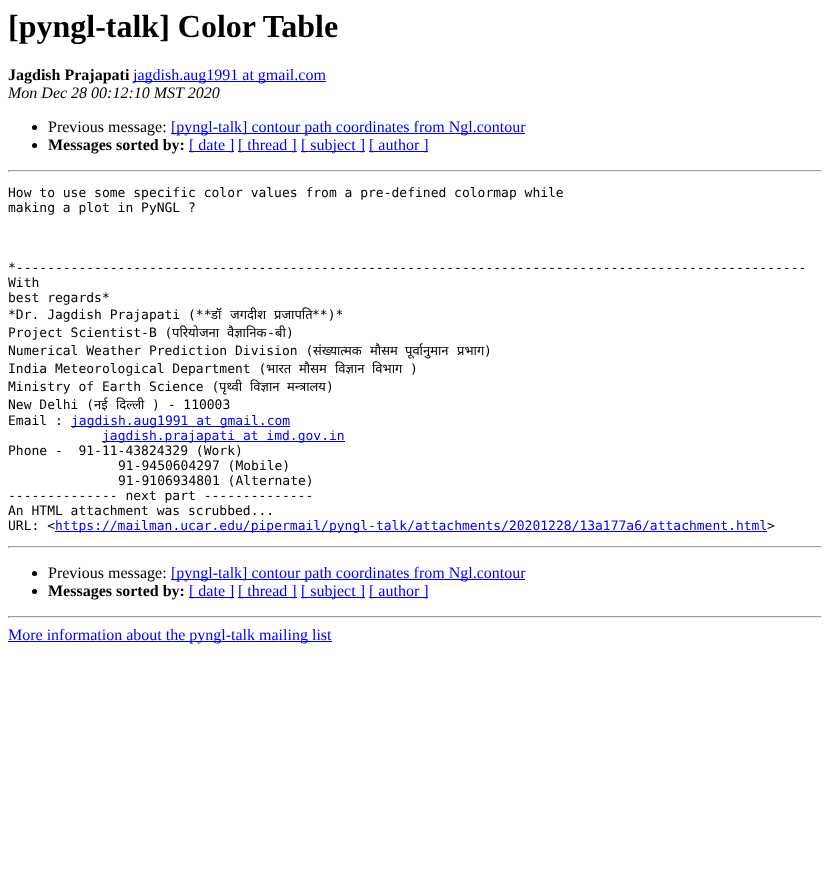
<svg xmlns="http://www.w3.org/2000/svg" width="830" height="872">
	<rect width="100%" height="100%" fill="#FFFFFF" />
	<text x="8" y="37" font-family="Liberation Serif" font-size="32" font-weight="700" fill="#000000">[pyngl-talk] Color Table</text>
	<text x="8" y="80" font-family="Liberation Serif" font-size="16" font-weight="700" fill="#000000">Jagdish Prajapati</text>
	<rect x="133" y="81" width="193" height="1" fill="#0000EE" />
	<text x="133" y="80" font-family="Liberation Serif" font-size="16" fill="#0000EE">jagdish.aug1991 at gmail.com</text>
	<text x="8" y="98" font-family="Liberation Serif" font-size="16" font-style="italic" fill="#000000">Mon Dec 28 00:12:10 MST 2020</text>
	<circle cx="34.5" cy="127.5" r="2.5" fill="#000000" />
	<text x="48" y="132" font-family="Liberation Serif" font-size="16" fill="#000000">Previous message:</text>
	<rect x="171" y="133" width="354" height="1" fill="#0000EE" />
	<text x="171" y="132" font-family="Liberation Serif" font-size="16" fill="#0000EE">[pyngl-talk] contour path coordinates from Ngl.contour</text>
	<circle cx="34.5" cy="145.5" r="2.5" fill="#000000" />
	<text x="48" y="150" font-family="Liberation Serif" font-size="16" font-weight="700" fill="#000000">Messages sorted by:</text>
	<rect x="189" y="151" width="45" height="1" fill="#0000EE" />
	<text x="189" y="150" font-family="Liberation Serif" font-size="16" fill="#0000EE">[ date ]</text>
	<rect x="238" y="151" width="59" height="1" fill="#0000EE" />
	<text x="238" y="150" font-family="Liberation Serif" font-size="16" fill="#0000EE">[ thread ]</text>
	<rect x="301" y="151" width="64" height="1" fill="#0000EE" />
	<text x="301" y="150" font-family="Liberation Serif" font-size="16" fill="#0000EE">[ subject ]</text>
	<rect x="369" y="151" width="59" height="1" fill="#0000EE" />
	<text x="369" y="150" font-family="Liberation Serif" font-size="16" fill="#0000EE">[ author ]</text>
	<rect x="8" y="170" width="814" height="1" fill="#9F9F9F" />
	<rect x="821" y="170" width="1" height="2" fill="#EEEEEE" />
	<rect x="8" y="171" width="814" height="1" fill="#EEEEEE" />
	<rect x="8" y="170" width="1" height="2" fill="#9F9F9F" />
	<g font-family="DejaVu Sans Mono" font-size="13" fill="#000000">
		<text x="8" y="197">How to use some specific color values from a pre-defined colormap while</text>
		<text x="8" y="212">making a plot in PyNGL ?</text>
		<text x="8" y="272">*-----------------------------------------------------------------------------------------------------</text>
		<text x="8" y="287">With</text>
		<text x="8" y="302">best regards*</text>
		<text x="8" y="319">*Dr. Jagdish Prajapati (**</text>
	</g>
	<g font-family="Noto Sans" font-size="13" fill="#000000">
		<text x="211" y="319">डॉ</text>
		<text x="230" y="319">जगदीश</text>
		<text x="274" y="319">प्रजापति</text>
	</g>
	<g font-family="DejaVu Sans Mono" font-size="13" fill="#000000">
		<text x="312" y="319">**)*</text>
		<text x="8" y="337">Project Scientist-B (</text>
	</g>
	<g font-family="Noto Sans" font-size="13" fill="#000000">
		<text x="172" y="337">परियोजना</text>
		<text x="227" y="337">वैज्ञानिक</text>
	</g>
	<text x="267" y="337" font-family="DejaVu Sans Mono" font-size="13" fill="#000000">-</text>
	<text x="275" y="337" font-family="Noto Sans" font-size="13" fill="#000000">बी</text>
	<g font-family="DejaVu Sans Mono" font-size="13" fill="#000000">
		<text x="286" y="337">)</text>
		<text x="8" y="355">Numerical Weather Prediction Division (</text>
	</g>
	<g font-family="Noto Sans" font-size="13" fill="#000000">
		<text x="313" y="355">संख्यात्मक</text>
		<text x="370" y="355">मौसम</text>
		<text x="405" y="355">पूर्वानुमान</text>
		<text x="457" y="355">प्रभाग</text>
	</g>
	<g font-family="DejaVu Sans Mono" font-size="13" fill="#000000">
		<text x="484" y="355">)</text>
		<text x="8" y="373">India Meteorological Department (</text>
	</g>
	<g font-family="Noto Sans" font-size="13" fill="#000000">
		<text x="266" y="373">भारत</text>
		<text x="299" y="373">मौसम</text>
		<text x="335" y="373">विज्ञान</text>
		<text x="372" y="373">विभाग</text>
	</g>
	<g font-family="DejaVu Sans Mono" font-size="13" fill="#000000">
		<text x="410" y="373">)</text>
		<text x="8" y="391">Ministry of Earth Science (</text>
	</g>
	<g font-family="Noto Sans" font-size="13" fill="#000000">
		<text x="219" y="391">पृथ्वी</text>
		<text x="250" y="391">विज्ञान</text>
		<text x="287" y="391">मन्त्रालय</text>
	</g>
	<g font-family="DejaVu Sans Mono" font-size="13" fill="#000000">
		<text x="326" y="391">)</text>
		<text x="8" y="409">New Delhi (</text>
	</g>
	<g font-family="Noto Sans" font-size="13" fill="#000000">
		<text x="94" y="409">नई</text>
		<text x="116" y="409">दिल्ली</text>
	</g>
	<g font-family="DejaVu Sans Mono" font-size="13" fill="#000000">
		<text x="152" y="409">) - 110003</text>
		<text x="8" y="425">Email :</text>
	</g>
	<rect x="71" y="426" width="219" height="1" fill="#0000EE" />
	<text x="71" y="425" font-family="DejaVu Sans Mono" font-size="13" fill="#0000EE">jagdish.aug1991 at gmail.com</text>
	<rect x="102" y="441" width="243" height="1" fill="#0000EE" />
	<text x="102" y="440" font-family="DejaVu Sans Mono" font-size="13" fill="#0000EE">jagdish.prajapati at imd.gov.in</text>
	<g font-family="DejaVu Sans Mono" font-size="13" fill="#000000">
		<text x="8" y="455" xml:space="preserve">Phone -  91-11-43824329 (Work)</text>
		<text x="118" y="470">91-9450604297 (Mobile)</text>
		<text x="118" y="485">91-9106934801 (Alternate)</text>
		<text x="8" y="500">-------------- next part --------------</text>
		<text x="8" y="515">An HTML attachment was scrubbed...</text>
		<text x="8" y="530">URL: &lt;</text>
	</g>
	<rect x="55" y="531" width="712" height="1" fill="#0000EE" />
	<text x="55" y="530" font-family="DejaVu Sans Mono" font-size="13" fill="#0000EE">https://mailman.ucar.edu/pipermail/pyngl-talk/attachments/20201228/13a177a6/attachment.html</text>
	<text x="767" y="530" font-family="DejaVu Sans Mono" font-size="13" fill="#000000">&gt;</text>
	<rect x="8" y="546" width="814" height="1" fill="#9F9F9F" />
	<rect x="821" y="546" width="1" height="2" fill="#EEEEEE" />
	<rect x="8" y="547" width="814" height="1" fill="#EEEEEE" />
	<rect x="8" y="546" width="1" height="2" fill="#9F9F9F" />
	<circle cx="34.5" cy="573.5" r="2.5" fill="#000000" />
	<text x="48" y="578" font-family="Liberation Serif" font-size="16" fill="#000000">Previous message:</text>
	<rect x="171" y="579" width="354" height="1" fill="#0000EE" />
	<text x="171" y="578" font-family="Liberation Serif" font-size="16" fill="#0000EE">[pyngl-talk] contour path coordinates from Ngl.contour</text>
	<circle cx="34.5" cy="591.5" r="2.5" fill="#000000" />
	<text x="48" y="596" font-family="Liberation Serif" font-size="16" font-weight="700" fill="#000000">Messages sorted by:</text>
	<rect x="189" y="597" width="45" height="1" fill="#0000EE" />
	<text x="189" y="596" font-family="Liberation Serif" font-size="16" fill="#0000EE">[ date ]</text>
	<rect x="238" y="597" width="59" height="1" fill="#0000EE" />
	<text x="238" y="596" font-family="Liberation Serif" font-size="16" fill="#0000EE">[ thread ]</text>
	<rect x="301" y="597" width="64" height="1" fill="#0000EE" />
	<text x="301" y="596" font-family="Liberation Serif" font-size="16" fill="#0000EE">[ subject ]</text>
	<rect x="369" y="597" width="59" height="1" fill="#0000EE" />
	<text x="369" y="596" font-family="Liberation Serif" font-size="16" fill="#0000EE">[ author ]</text>
	<rect x="8" y="616" width="814" height="1" fill="#9F9F9F" />
	<rect x="821" y="616" width="1" height="2" fill="#EEEEEE" />
	<rect x="8" y="617" width="814" height="1" fill="#EEEEEE" />
	<rect x="8" y="616" width="1" height="2" fill="#9F9F9F" />
	<rect x="8" y="641" width="324" height="1" fill="#0000EE" />
	<text x="8" y="640" font-family="Liberation Serif" font-size="16" fill="#0000EE">More information about the pyngl-talk mailing list</text>
</svg>
